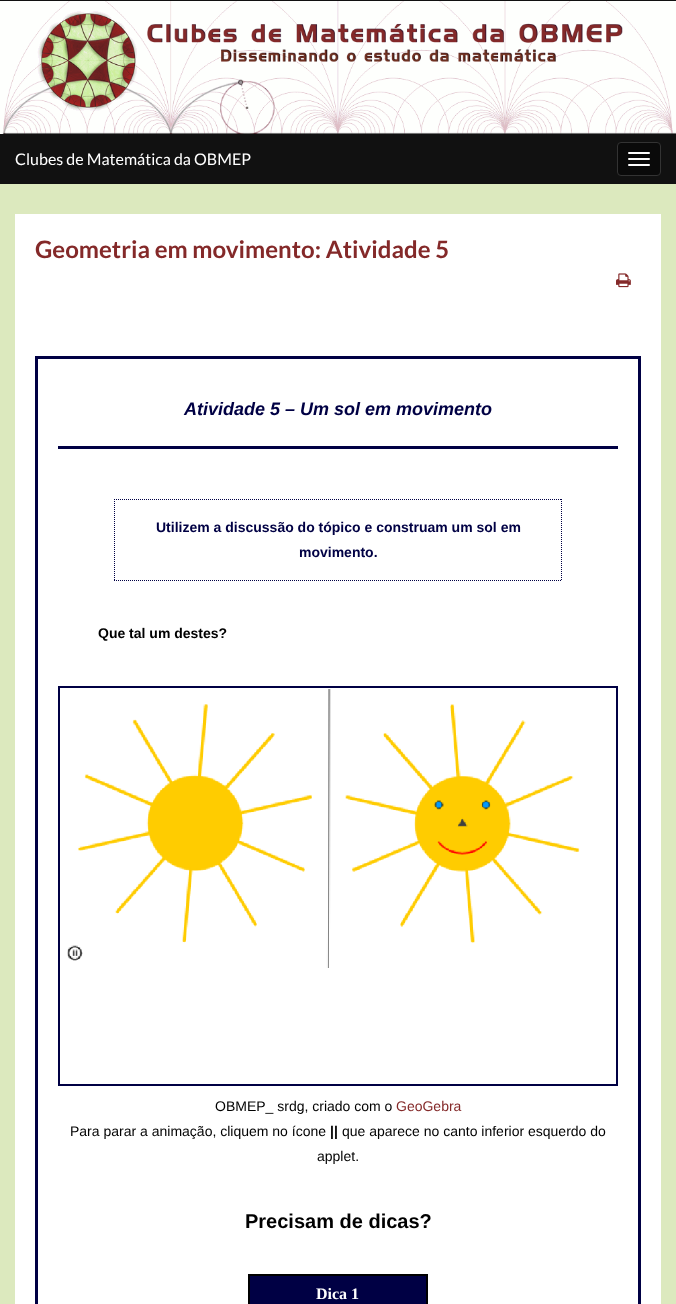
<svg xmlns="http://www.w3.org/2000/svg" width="676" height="1304">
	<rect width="100%" height="100%" fill="#111111" />
	<image x="0" y="1" width="676" height="133" href="assets/img1.png" />
	<text x="15" y="165" font-family="Lato" font-size="16" fill="#FFFFFF">Clubes de Matemática da OBMEP</text>
	<rect x="617.5" y="142.5" width="43" height="33" rx="3.5" fill="#0A0A0A" stroke="#333333" />
	<rect x="628" y="152" width="22" height="2" rx="1" fill="#FFFFFF" />
	<rect x="628" y="158" width="22" height="2" rx="1" fill="#FFFFFF" />
	<rect x="628" y="164" width="22" height="2" rx="1" fill="#FFFFFF" />
	<rect x="0" y="184" width="676" height="1120" fill="#DCE9BE" />
	<rect x="15" y="214" width="646" height="1090" fill="#FFFFFF" />
	<text x="35" y="258" font-family="Lato" font-size="24" font-weight="700" fill="#842929">Geometria em movimento: Atividade 5</text>
	<image x="616" y="273" width="15" height="15" href="assets/img2.png" />
	<rect x="36.5" y="357.5" width="603" height="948" fill="none" stroke="#000044" stroke-width="3" />
	<text x="184" y="415" font-family="Liberation Sans" font-size="18" font-weight="700" font-style="italic" fill="#000044">Atividade 5 – Um sol em movimento</text>
	<rect x="58" y="446" width="560" height="3" fill="#000044" />
	<path d="M114 499.5H562" fill="none" stroke="#000044" stroke-dasharray="1 1" />
	<path d="M561.5 499V581" fill="none" stroke="#000044" stroke-dasharray="1 1" />
	<path d="M114 580.5H562" fill="none" stroke="#000044" stroke-dasharray="1 1" />
	<path d="M114.5 499V581" fill="none" stroke="#000044" stroke-dasharray="1 1" />
	<g font-family="Liberation Sans" font-size="14" font-weight="700" fill="#000044">
		<text x="156" y="532">Utilizem a discussão do tópico e construam um sol em</text>
		<text x="299" y="557">movimento.</text>
	</g>
	<text x="98" y="638" font-family="Liberation Sans" font-size="14" font-weight="700" fill="#000000">Que tal um destes?</text>
	<rect x="59" y="687" width="558" height="398" fill="none" stroke="#000044" stroke-width="2" />
	<image x="67" y="689" width="513" height="279" href="assets/img3.png" />
	<text x="215" y="1111" font-family="Liberation Sans" font-size="14" fill="#000000">OBMEP_ srdg, criado com o</text>
	<text x="396" y="1111" font-family="Liberation Sans" font-size="14" fill="#842929">GeoGebra</text>
	<text x="70" y="1136" font-family="Liberation Sans" font-size="14" fill="#000000">Para parar a animação, cliquem no ícone</text>
	<text x="330" y="1136" font-family="Liberation Sans" font-size="14" font-weight="700" fill="#000000">||</text>
	<g font-family="Liberation Sans" font-size="14" fill="#000000">
		<text x="342" y="1136">que aparece no canto inferior esquerdo do</text>
		<text x="317" y="1161">applet.</text>
	</g>
	<text x="245" y="1228" font-family="Liberation Sans" font-size="20" font-weight="700" fill="#000000">Precisam de dicas?</text>
	<rect x="249" y="1275" width="178" height="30" fill="#000044" stroke="#000000" stroke-width="2" />
	<text x="316" y="1299" font-family="Liberation Serif" font-size="16" font-weight="700" fill="#FFFFFF">Dica 1</text>
</svg>
